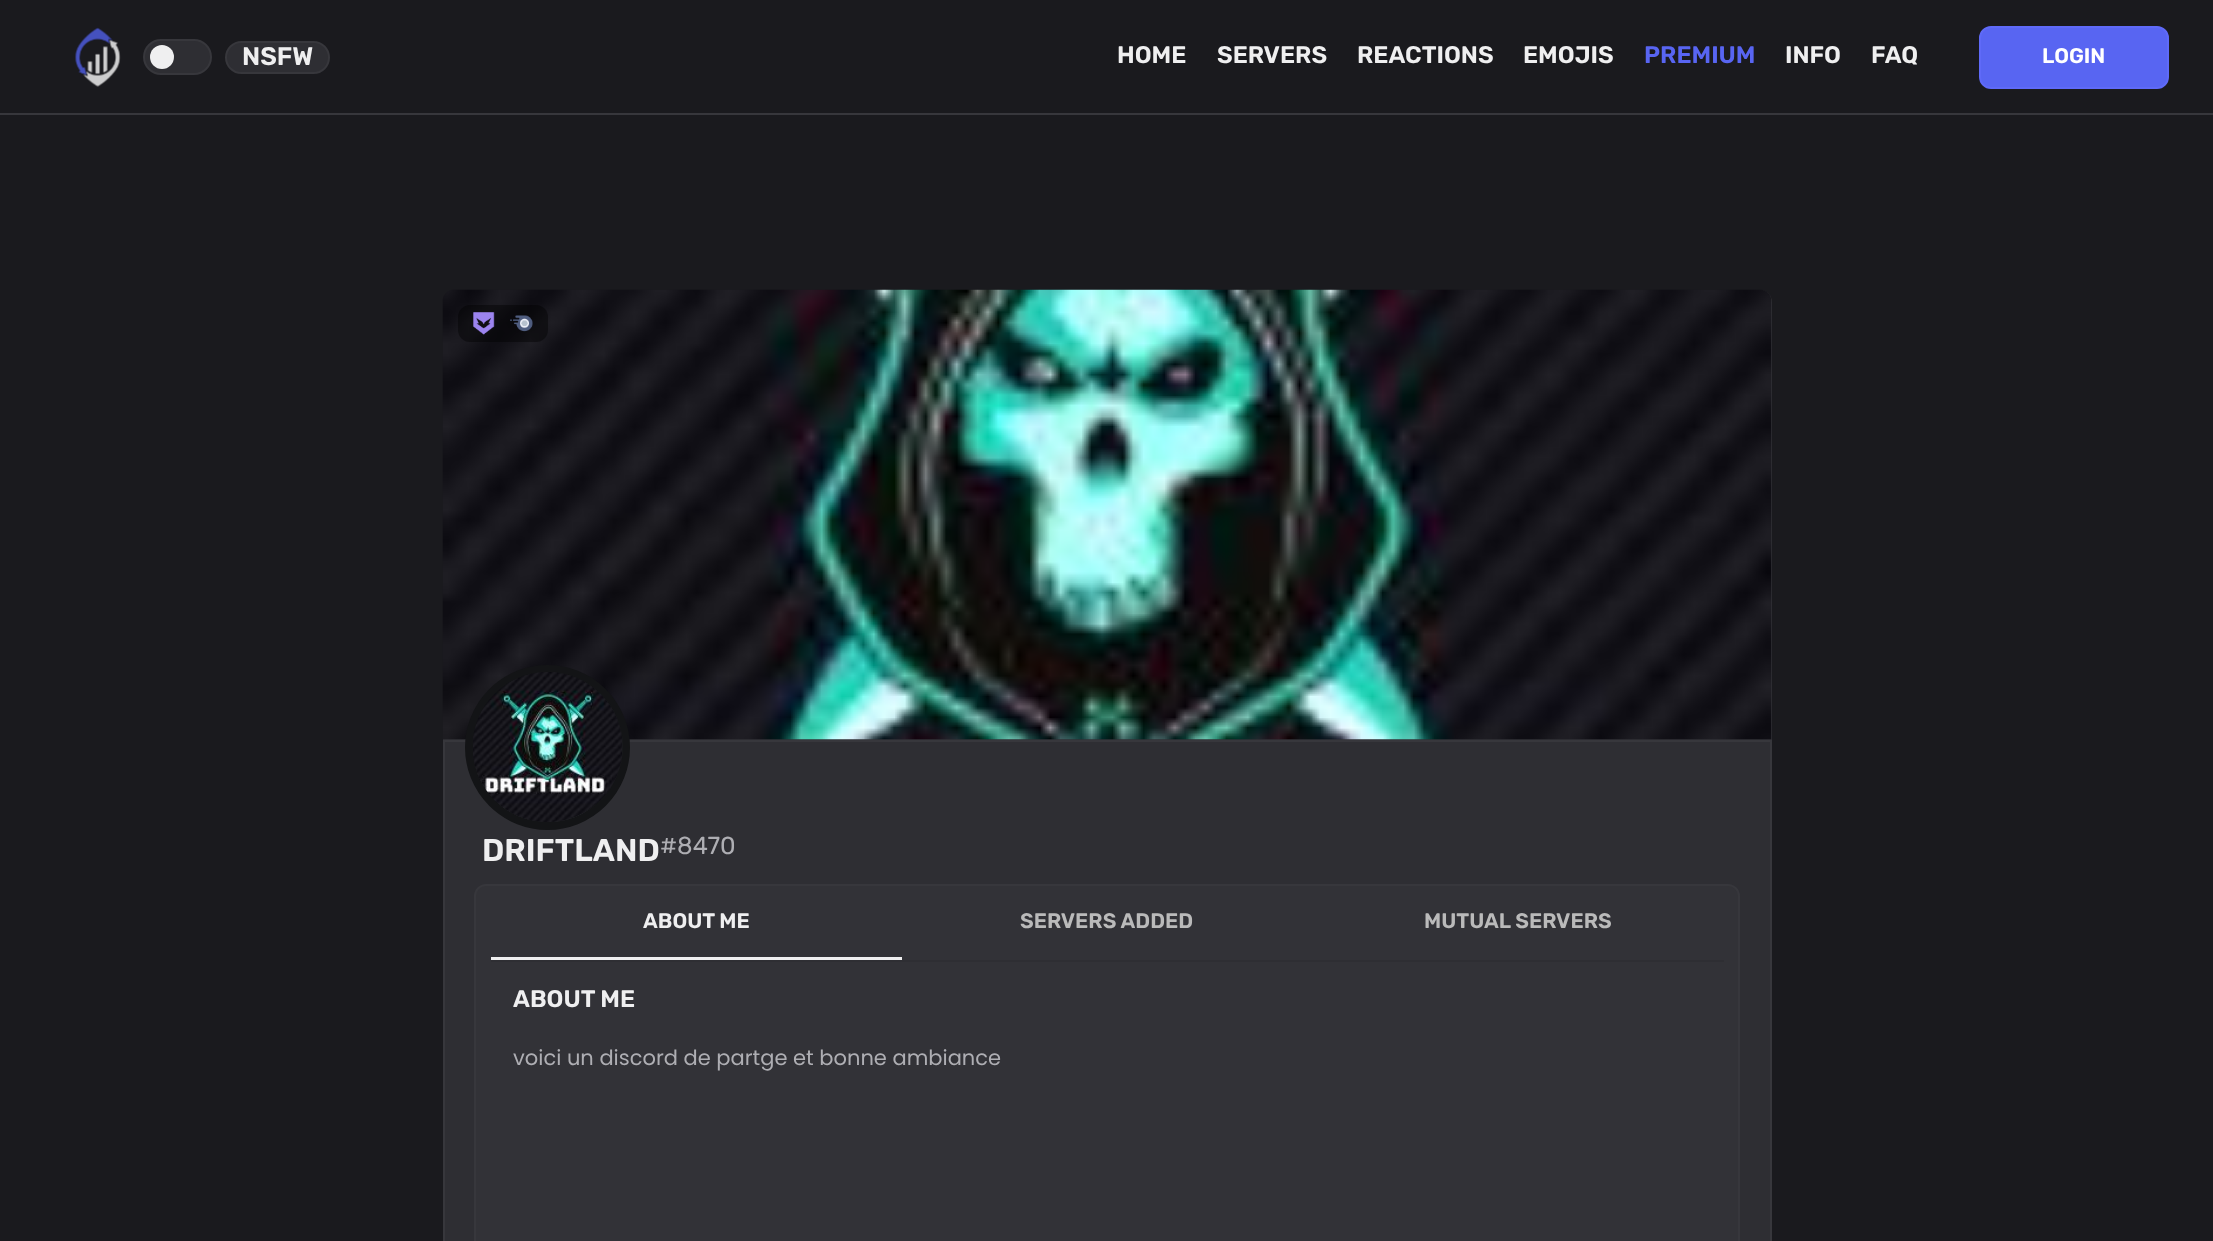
<svg xmlns="http://www.w3.org/2000/svg" width="2213" height="1241">
	<rect width="100%" height="100%" fill="#1A1A1E" />
	<rect x="0" y="113" width="2213" height="2" fill="#37373C" />
	<image x="75" y="27" width="46" height="60" href="assets/img1.png" />
	<rect x="144" y="40" width="67" height="34" rx="17" fill="#2E2E33" stroke="#37373C" stroke-width="2" />
	<circle cx="162" cy="57" r="12" fill="#EFEFF0" />
	<rect x="226" y="42" width="103" height="31" rx="15.5" fill="#2E2E33" stroke="#37373C" stroke-width="2" />
	<text x="242" y="65" font-family="Rubik" font-size="25.5" font-weight="600" fill="#EFEFF0">NSFW</text>
	<g font-family="Rubik" font-size="24" font-weight="600" fill="#EFEFF0">
		<text x="1117" y="63">HOME</text>
		<text x="1217" y="63">SERVERS</text>
		<text x="1357" y="63">REACTIONS</text>
		<text x="1523" y="63">EMOJIS</text>
	</g>
	<text x="1644" y="63" font-family="Rubik" font-size="24" font-weight="600" fill="#5865F2">PREMIUM</text>
	<g font-family="Rubik" font-size="24" font-weight="600" fill="#EFEFF0">
		<text x="1785" y="63">INFO</text>
		<text x="1871" y="63">FAQ</text>
	</g>
	<rect x="1980" y="27" width="188" height="61" rx="11" fill="#5865F2" stroke="#5F6AF8" stroke-width="2" />
	<text x="2042" y="63" font-family="Rubik" font-size="21" font-weight="600" fill="#FFFFFF">LOGIN</text>
	<path d="M455 290H1760C1766.5 290 1772 295.5 1772 302V740H443V302C443 295.5 448.5 290 455 290Z" fill="#323237" />
	<image x="442" y="289" width="1330" height="451" href="assets/img2.png" />
	<rect x="458" y="305" width="90" height="37" rx="12" fill="#000000" fill-opacity="0.4" />
	<image x="473" y="312" width="22" height="23" href="assets/img3.png" />
	<image x="510" y="315" width="23" height="17" href="assets/img4.png" />
	<rect x="444" y="741" width="1327" height="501" fill="#2E2E33" stroke="#37373C" stroke-width="2" />
	<circle cx="547.5" cy="747.5" r="78.5" fill="none" stroke="#131416" stroke-width="8" />
	<circle cx="548" cy="747" r="75" fill="#18191C" />
	<image x="473" y="672" width="149" height="150" href="assets/img5.png" />
	<text x="482" y="861" font-family="Rubik" font-size="31.5" font-weight="600" fill="#EFEFF0">DRIFTLAND</text>
	<text x="660" y="854" font-family="Rubik" font-size="24.5" fill="#AEAEB3">#8470</text>
	<rect x="475" y="885" width="1264" height="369" rx="11" fill="#323237" stroke="#37373C" stroke-width="2" />
	<rect x="491" y="960" width="1233" height="2" fill="#2E2E33" />
	<rect x="491" y="957" width="411" height="3" fill="#EFEFF0" />
	<text x="643" y="928" font-family="Rubik" font-size="21" font-weight="600" fill="#EFEFF0">ABOUT ME</text>
	<g font-family="Rubik" font-size="21" font-weight="600" fill="#BABABA">
		<text x="1020" y="928">SERVERS ADDED</text>
		<text x="1424" y="928">MUTUAL SERVERS</text>
	</g>
	<text x="513" y="1007" font-family="Rubik" font-size="24" font-weight="600" fill="#EFEFF0">ABOUT ME</text>
	<text x="513" y="1065" font-family="Poppins" font-size="21" fill="#AEAEB3">voici un discord de partge et bonne ambiance</text>
</svg>
